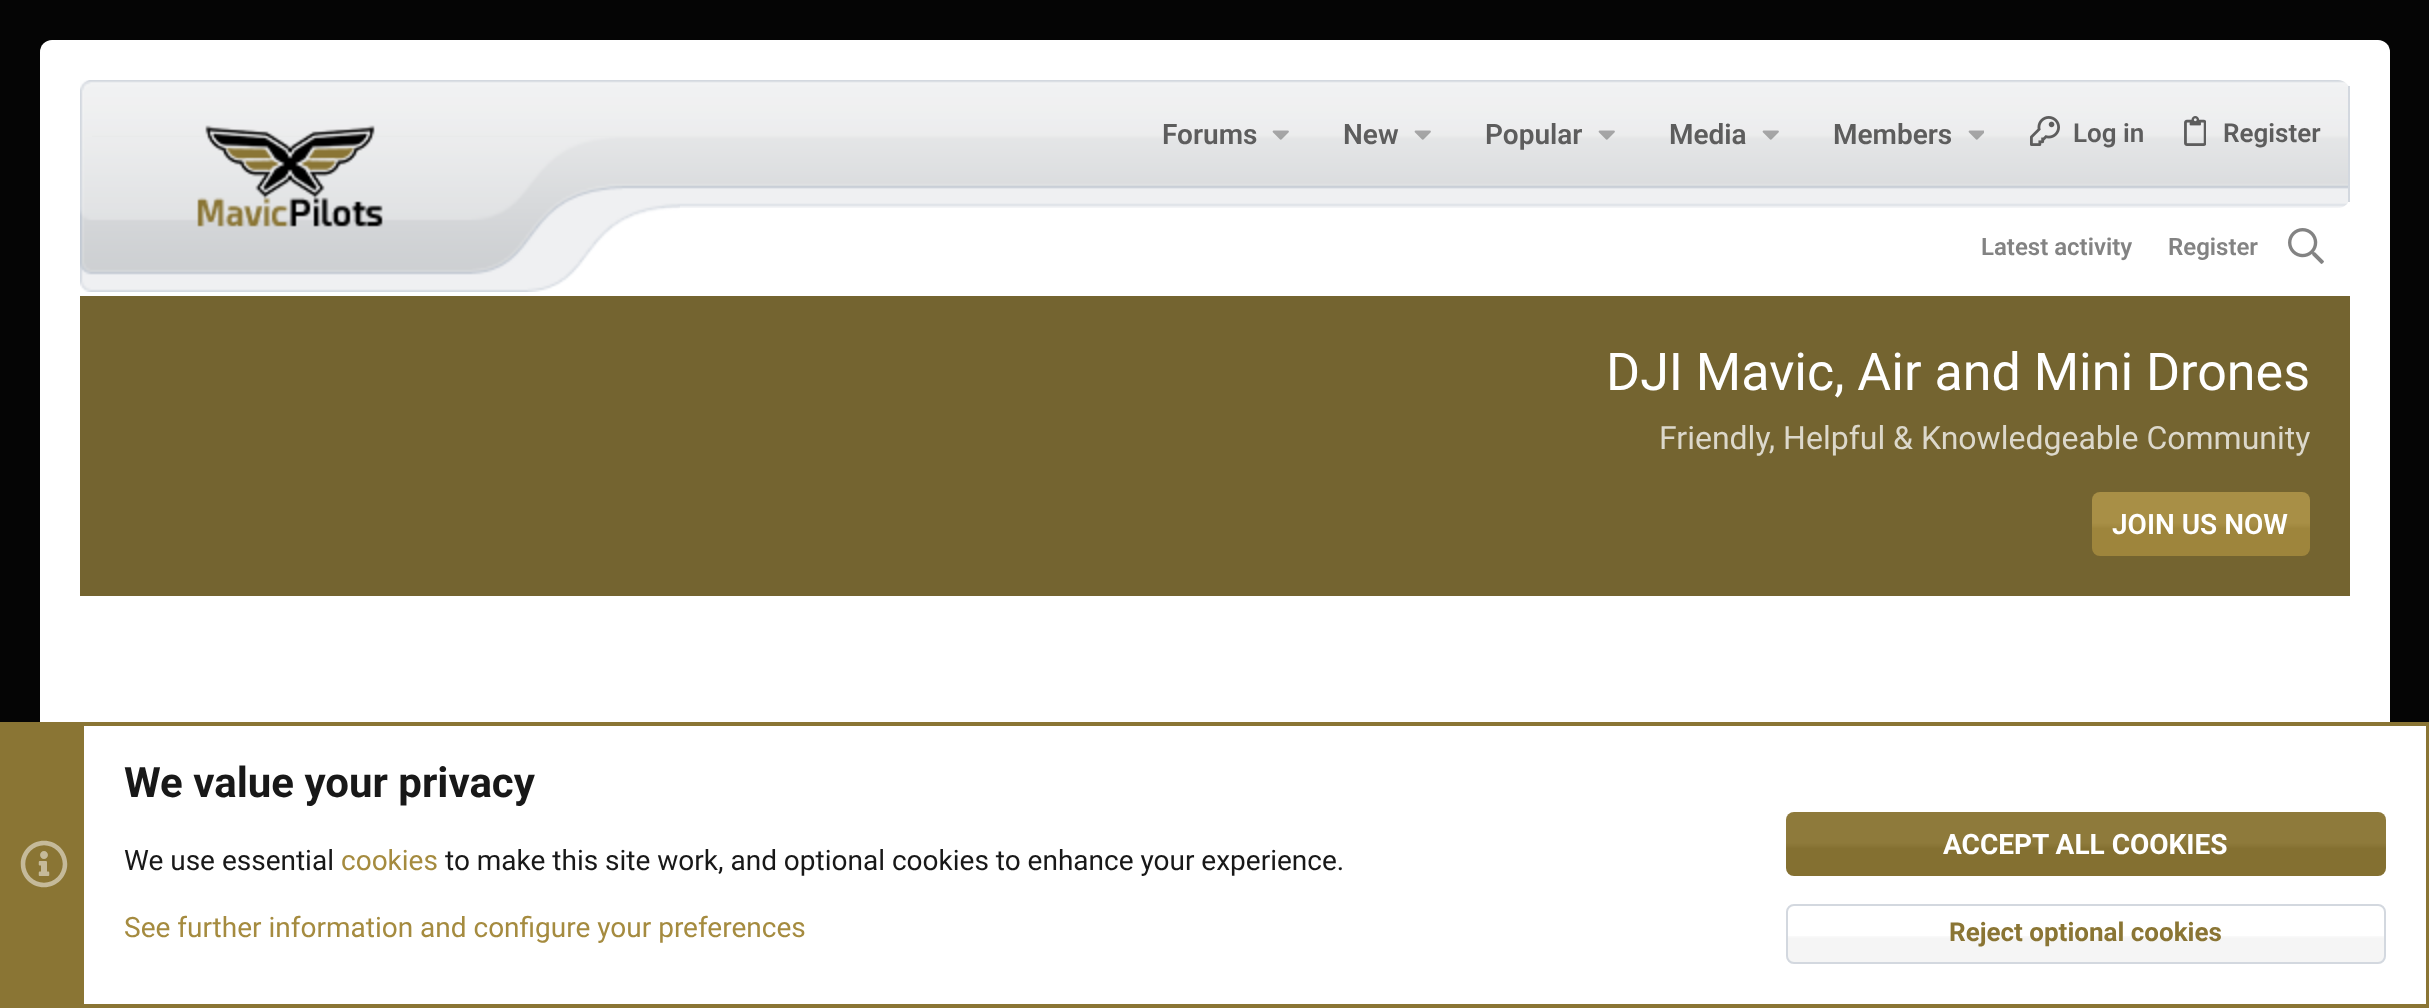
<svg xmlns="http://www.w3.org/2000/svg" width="2429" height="1008">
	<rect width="100%" height="100%" fill="#050505" />
	<rect x="40" y="40" width="2350" height="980" rx="12" fill="#FFFFFF" />
	<image x="80" y="80" width="2269" height="128" href="assets/img1.png" />
	<rect x="2348" y="86" width="2" height="116" fill="#D3D8DF" />
	<image x="92" y="137" width="376" height="155" href="assets/img2.png" />
	<image x="80" y="80" width="12" height="212" href="assets/img3.png" />
	<image x="197" y="125" width="186" height="102" href="assets/img4.png" />
	<image x="468" y="137" width="212" height="155" href="assets/img5.png" />
	<text x="1162" y="144" font-family="Roboto" font-size="28" font-weight="600" fill="#5D5D5D">Forums</text>
	<image x="1272" y="130" width="17" height="10" href="assets/img6.png" />
	<text x="1343" y="144" font-family="Roboto" font-size="28" font-weight="600" fill="#5D5D5D">New</text>
	<image x="1414" y="130" width="17" height="10" href="assets/img6.png" />
	<text x="1485" y="144" font-family="Roboto" font-size="28" font-weight="600" fill="#5D5D5D">Popular</text>
	<image x="1598" y="130" width="17" height="10" href="assets/img6.png" />
	<text x="1669" y="144" font-family="Roboto" font-size="28" font-weight="600" fill="#5D5D5D">Media</text>
	<image x="1762" y="130" width="17" height="10" href="assets/img6.png" />
	<text x="1833" y="144" font-family="Roboto" font-size="28" font-weight="600" fill="#5D5D5D">Members</text>
	<image x="1968" y="130" width="16" height="10" href="assets/img7.png" />
	<image x="2030" y="116" width="30" height="30" href="assets/img8.png" />
	<text x="2073" y="142" font-family="Roboto" font-size="26" font-weight="600" fill="#5D5D5D">Log in</text>
	<image x="2184" y="116" width="22" height="30" href="assets/img9.png" />
	<text x="2223" y="142" font-family="Roboto" font-size="26" font-weight="600" fill="#5D5D5D">Register</text>
	<g font-family="Roboto" font-size="24" font-weight="600" fill="#838383">
		<text x="1981" y="255">Latest activity</text>
		<text x="2168" y="255">Register</text>
	</g>
	<image x="2288" y="228" width="36" height="36" href="assets/img10.png" />
	<rect x="80" y="296" width="2270" height="300" fill="#746430" />
	<text x="1606" y="390" font-family="Roboto" font-size="52" fill="#FFFFFF">DJI Mavic, Air and Mini Drones</text>
	<text x="1659" y="449" font-family="Roboto" font-size="32" fill="#DCD8CB">Friendly, Helpful &amp; Knowledgeable Community</text>
	<rect x="2092" y="492" width="218" height="64" rx="8" fill="#A58B3F" />
	<image x="2092" y="492" width="218" height="64" href="assets/img11.png" />
	<text x="2112" y="534" font-family="Roboto" font-size="28" font-weight="600" fill="#FFFFFF">JOIN US NOW</text>
	<rect x="2390" y="726" width="36" height="278" fill="#FFFFFF" />
	<rect x="2" y="724" width="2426" height="282" fill="none" stroke="#8A7534" stroke-width="4" />
	<rect x="4" y="726" width="80" height="278" fill="#8A7534" />
	<image x="20" y="840" width="48" height="48" href="assets/img12.png" />
	<text x="124" y="797" font-family="Roboto" font-size="42" font-weight="700" fill="#181818">We value your privacy</text>
	<text x="124" y="870" font-family="Roboto" font-size="28" fill="#181818">We use essential</text>
	<text x="341" y="870" font-family="Roboto" font-size="28" fill="#A58B3F">cookies</text>
	<text x="445" y="870" font-family="Roboto" font-size="28" fill="#181818">to make this site work, and optional cookies to enhance your experience.</text>
	<text x="124" y="937" font-family="Roboto" font-size="28" fill="#A58B3F">See further information and configure your preferences</text>
	<rect x="1786" y="812" width="600" height="64" rx="8" fill="#8A7534" />
	<image x="1786" y="812" width="600" height="64" href="assets/img13.png" />
	<text x="1943" y="854" font-family="Roboto" font-size="28" font-weight="700" fill="#FFFFFF">ACCEPT ALL COOKIES</text>
	<image x="1786" y="936" width="600" height="28" href="assets/img14.png" />
	<rect x="1787" y="905" width="598" height="58" rx="7" fill="none" stroke="#D3D8DF" stroke-width="2" />
	<text x="1949" y="941" font-family="Roboto" font-size="26" font-weight="700" fill="#8A7534">Reject optional cookies</text>
</svg>
